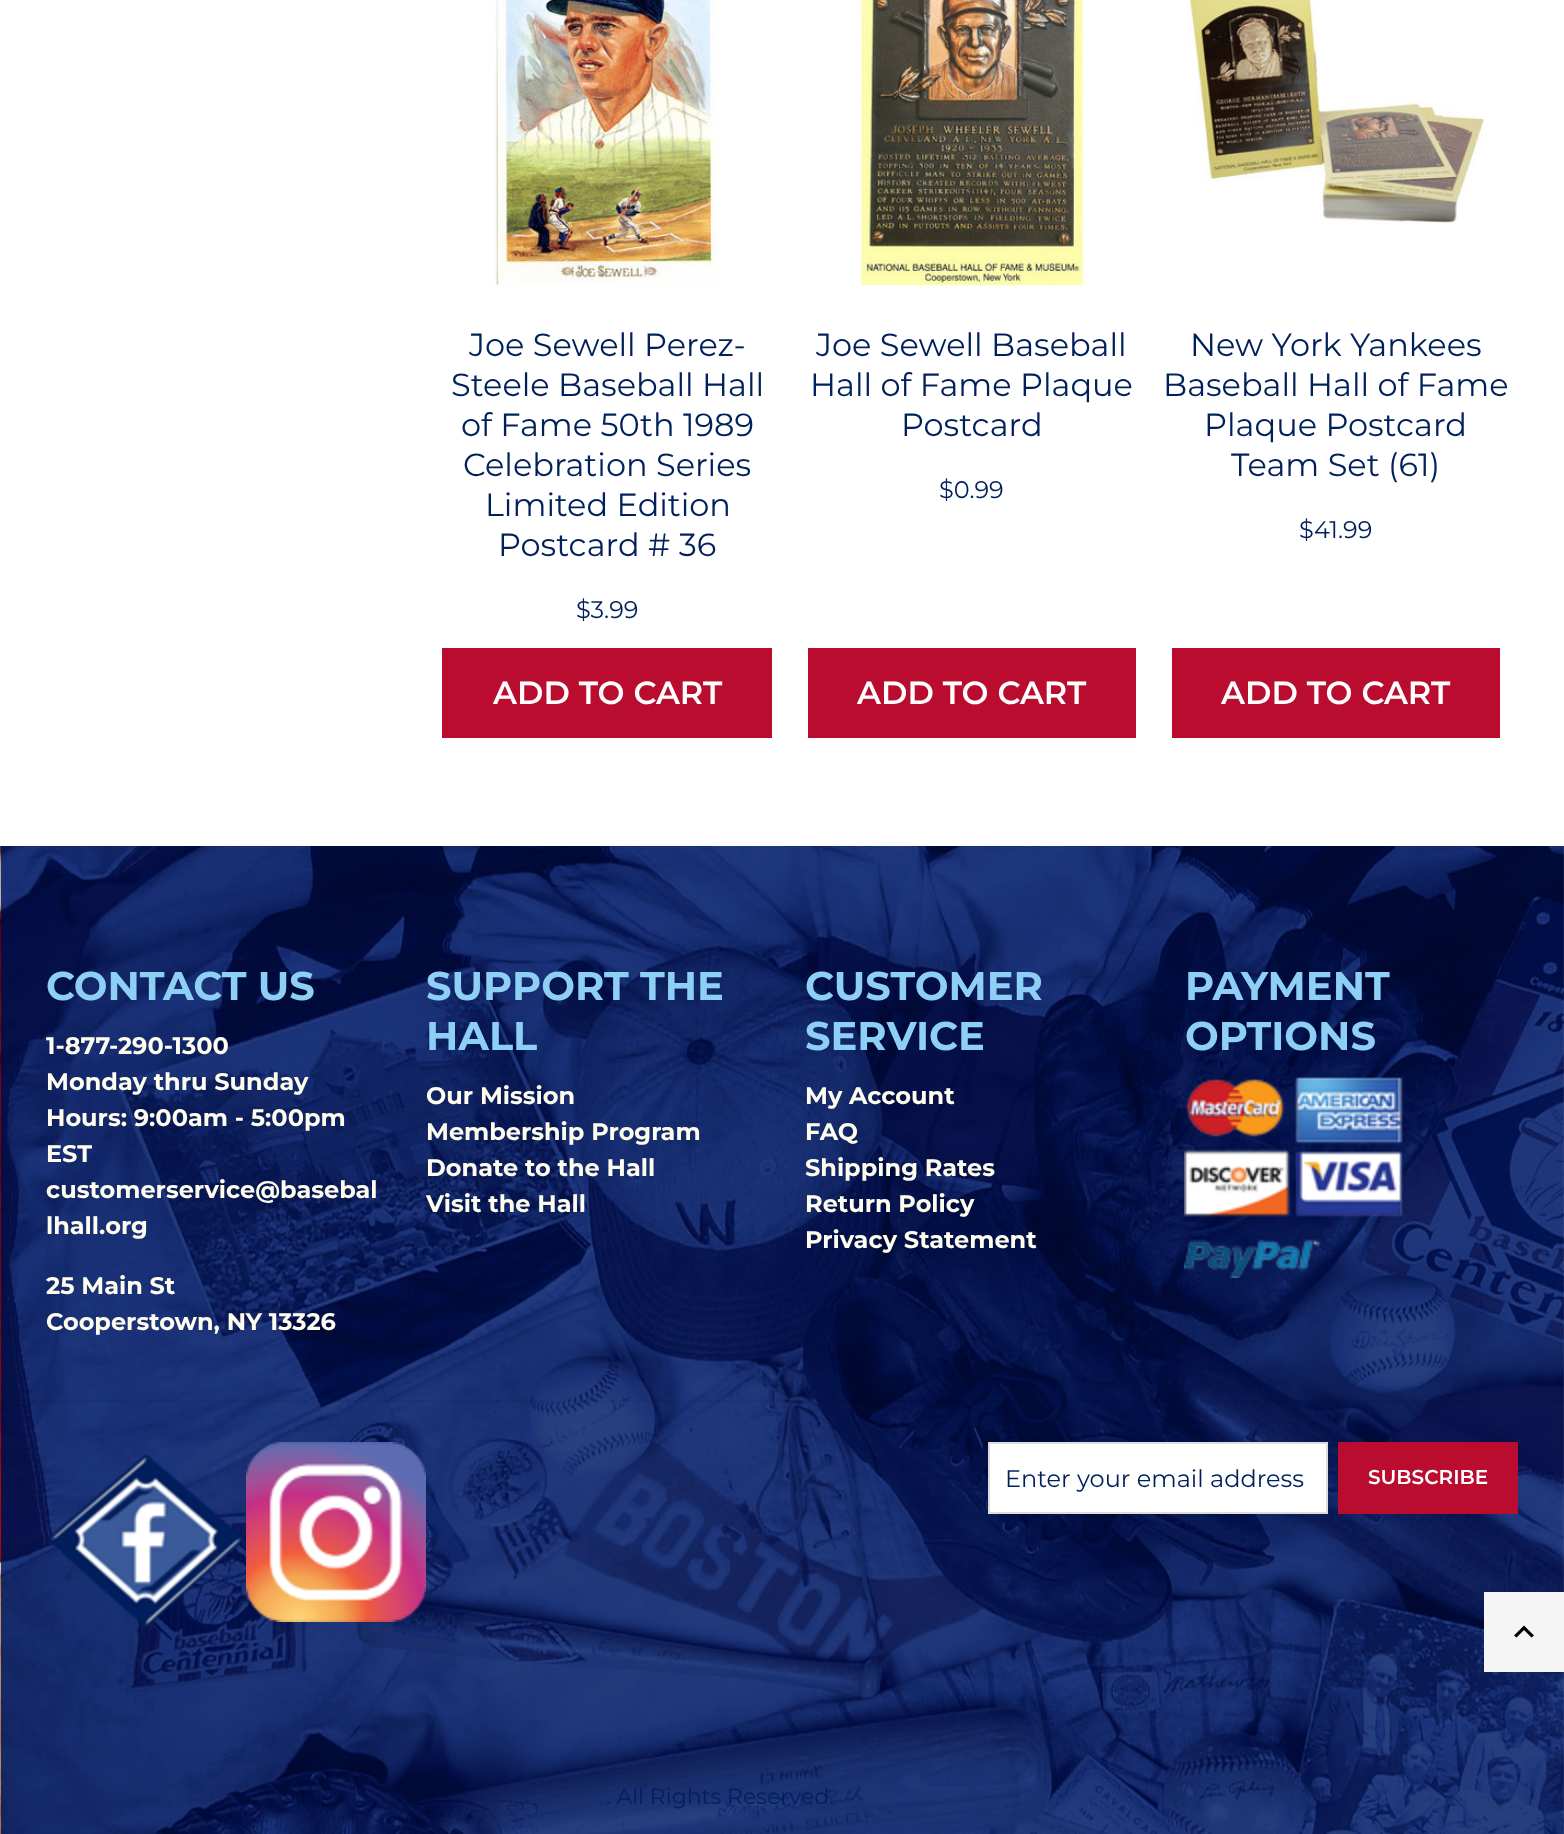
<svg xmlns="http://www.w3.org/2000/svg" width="1564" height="1834">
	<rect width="100%" height="100%" fill="#FFFFFF" />
	<image x="495" y="0" width="223" height="286" href="assets/img1.png" />
	<g font-family="Montserrat" font-size="32" fill="#00205B">
		<text x="469" y="356">Joe Sewell Perez-</text>
		<text x="451" y="396">Steele Baseball Hall</text>
		<text x="461" y="436">of Fame 50th 1989</text>
		<text x="463" y="476">Celebration Series</text>
		<text x="485" y="516">Limited Edition</text>
		<text x="498" y="556">Postcard # 36</text>
	</g>
	<text x="576" y="618" font-family="Montserrat" font-size="24" fill="#00205B">$3.99</text>
	<rect x="442" y="648" width="330" height="90" fill="#BA0C2F" />
	<text x="493" y="704" font-family="Montserrat" font-size="32" font-weight="600" fill="#FFFFFF">ADD TO CART</text>
	<image x="858" y="0" width="228" height="286" href="assets/img2.png" />
	<g font-family="Montserrat" font-size="32" fill="#00205B">
		<text x="816" y="356">Joe Sewell Baseball</text>
		<text x="810" y="396">Hall of Fame Plaque</text>
		<text x="901" y="436">Postcard</text>
	</g>
	<text x="939" y="498" font-family="Montserrat" font-size="24" fill="#00205B">$0.99</text>
	<rect x="808" y="648" width="328" height="90" fill="#BA0C2F" />
	<text x="857" y="704" font-family="Montserrat" font-size="32" font-weight="600" fill="#FFFFFF">ADD TO CART</text>
	<image x="1188" y="0" width="297" height="224" href="assets/img3.png" />
	<g font-family="Montserrat" font-size="32" fill="#00205B">
		<text x="1190" y="356">New York Yankees</text>
		<text x="1163" y="396">Baseball Hall of Fame</text>
		<text x="1204" y="436">Plaque Postcard</text>
		<text x="1231" y="476">Team Set (61)</text>
	</g>
	<text x="1299" y="538" font-family="Montserrat" font-size="24" fill="#00205B">$41.99</text>
	<rect x="1172" y="648" width="328" height="90" fill="#BA0C2F" />
	<text x="1221" y="704" font-family="Montserrat" font-size="32" font-weight="600" fill="#FFFFFF">ADD TO CART</text>
	<image x="0" y="846" width="1564" height="988" href="assets/img4.png" />
	<rect x="0" y="1400" width="1564" height="2" fill="#000000" fill-opacity="0.05" />
	<text x="46" y="1000" font-family="Montserrat" font-size="40" font-weight="700" fill="#8DCFF5">CONTACT US</text>
	<g font-family="Montserrat" font-size="24" font-weight="700" fill="#FFFDEE">
		<text x="46" y="1054">1-877-290-1300</text>
		<text x="46" y="1090">Monday thru Sunday</text>
		<text x="46" y="1126">Hours: 9:00am - 5:00pm</text>
		<text x="46" y="1162">EST</text>
		<text x="46" y="1198">customerservice@basebal</text>
		<text x="46" y="1234">lhall.org</text>
		<text x="46" y="1294">25 Main St</text>
		<text x="46" y="1330">Cooperstown, NY 13326</text>
	</g>
	<g font-family="Montserrat" font-size="40" font-weight="700" fill="#8DCFF5">
		<text x="426" y="1000">SUPPORT THE</text>
		<text x="426" y="1050">HALL</text>
	</g>
	<g font-family="Montserrat" font-size="24" font-weight="700" fill="#FFFDEE">
		<text x="426" y="1104">Our Mission</text>
		<text x="426" y="1140">Membership Program</text>
		<text x="426" y="1176">Donate to the Hall</text>
		<text x="426" y="1212">Visit the Hall</text>
	</g>
	<g font-family="Montserrat" font-size="40" font-weight="700" fill="#8DCFF5">
		<text x="805" y="1000">CUSTOMER</text>
		<text x="805" y="1050">SERVICE</text>
	</g>
	<g font-family="Montserrat" font-size="24" font-weight="700" fill="#FFFDEE">
		<text x="805" y="1104">My Account</text>
		<text x="805" y="1140">FAQ</text>
		<text x="805" y="1176">Shipping Rates</text>
		<text x="805" y="1212">Return Policy</text>
		<text x="805" y="1248">Privacy Statement</text>
	</g>
	<g font-family="Montserrat" font-size="40" font-weight="700" fill="#8DCFF5">
		<text x="1185" y="1000">PAYMENT</text>
		<text x="1185" y="1050">OPTIONS</text>
	</g>
	<image x="1184" y="1077" width="219" height="201" href="assets/img5.png" />
	<image x="46" y="1453" width="199" height="175" href="assets/img6.png" />
	<image x="246" y="1442" width="180" height="180" href="assets/img7.png" />
	<rect x="989" y="1443" width="338" height="70" fill="#FFFFFF" stroke="#DDDDDD" stroke-width="2" />
	<text x="1005" y="1487" font-family="Montserrat" font-size="24" fill="#00205B">Enter your email address</text>
	<rect x="1338" y="1442" width="180" height="72" fill="#BA0C2F" />
	<text x="1368" y="1484" font-family="Montserrat" font-size="20" font-weight="600" fill="#FFFFFF">SUBSCRIBE</text>
	<rect x="1484" y="1592" width="80" height="80" fill="#F5F5F5" />
	<path d="M1516.5 1637.5L1524 1630L1531.5 1637.5L1534 1635.5L1524 1625.5L1514 1635.5Z" fill="#000000" />
	<text x="606" y="1804" font-family="Montserrat" font-size="22" fill="#00205B">. All Rights Reserved.</text>
</svg>
